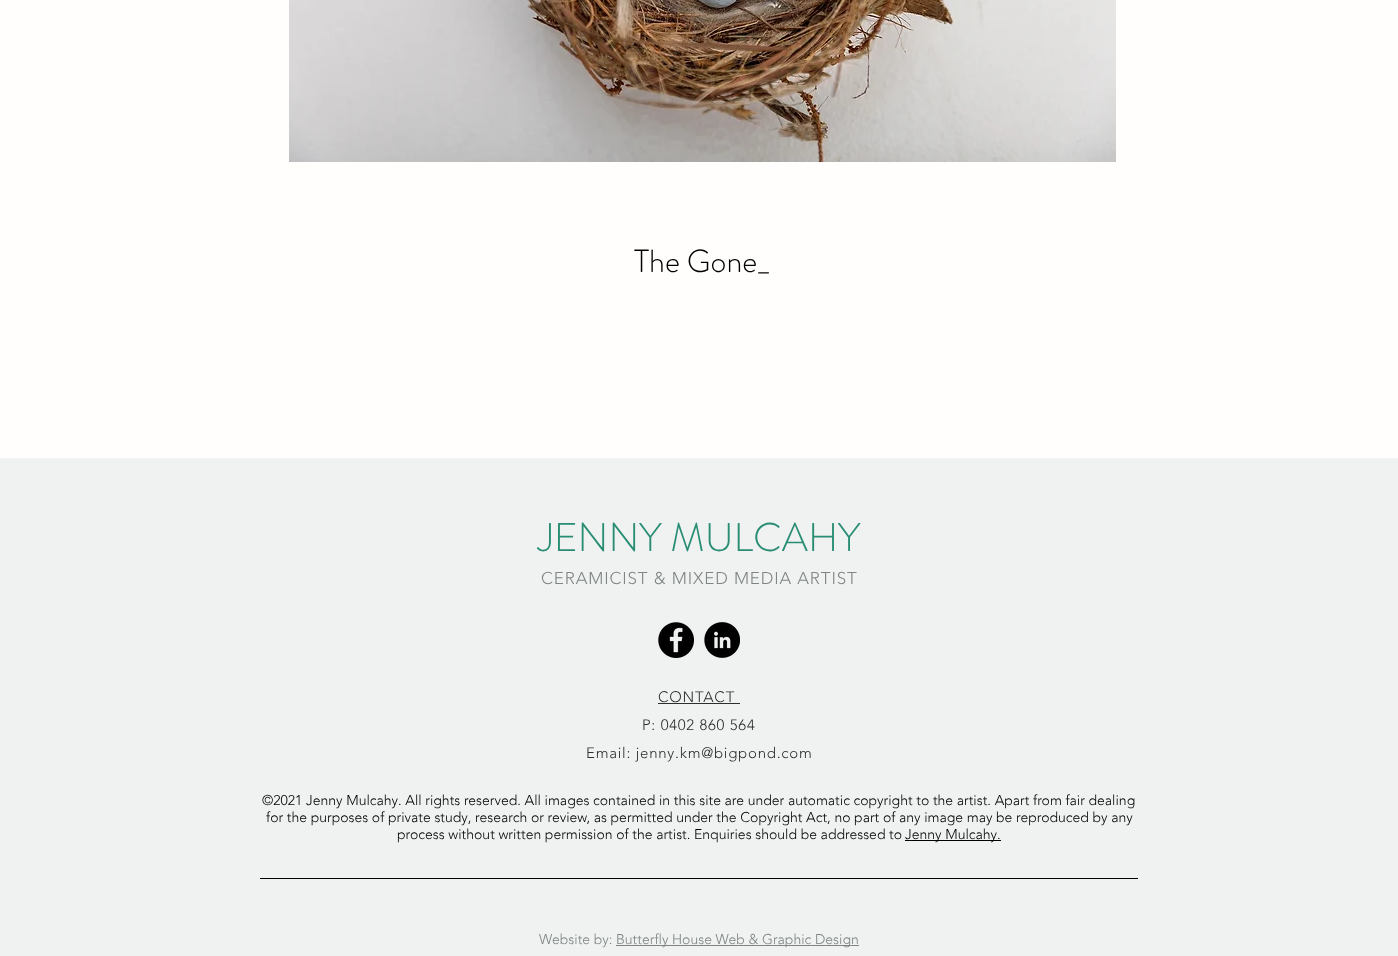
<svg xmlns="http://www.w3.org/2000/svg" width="1398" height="956">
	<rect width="100%" height="100%" fill="#FFFEFC" />
	<image x="289" y="0" width="827" height="162" href="assets/img1.png" />
	<text x="634" y="272" font-family="'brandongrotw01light'" font-size="32" font-weight="300" fill="#000000">The Gone_</text>
	<rect x="0" y="459" width="1398" height="497" fill="#F0F2F2" />
	<rect x="0" y="458" width="1398" height="1" fill="#F2F4F4" />
	<text x="538" y="551" font-family="'brandongrotw01light'" font-size="40" font-weight="300" fill="#298D74">JENNY MULCAHY</text>
	<text x="541" y="584" font-family="'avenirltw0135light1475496'" font-size="17" font-weight="300" letter-spacing="0.85" fill="#7F8584">CERAMICIST &amp; MIXED MEDIA ARTIST</text>
	<image x="658" y="622" width="36" height="36" href="assets/img2.png" />
	<image x="704" y="622" width="36" height="36" href="assets/img3.png" />
	<text x="658" y="702" font-family="'avenirltw0135light1475496'" font-size="15" font-weight="300" letter-spacing="0.75" fill="#2F2E2E">CONTACT</text>
	<rect x="658" y="703" width="82" height="1" fill="#2F2E2E" />
	<g font-family="'avenirltw0135light1475496'" font-size="15" font-weight="300" letter-spacing="0.75" fill="#2F2E2E">
		<text x="642" y="730">P: 0402 860 564</text>
		<text x="586" y="758">Email: jenny.km@bigpond.com</text>
	</g>
	<g font-family="'avenirltw0135light1475496'" font-size="14" font-weight="300" fill="#000000">
		<text x="262" y="805">©2021 Jenny Mulcahy. All rights reserved. All images contained in this site are under automatic copyright to the artist. Apart from fair dealing</text>
		<text x="266" y="822">for the purposes of private study, research or review, as permitted under the Copyright Act, no part of any image may be reproduced by any</text>
		<text x="397" y="839">process without written permission of the artist. Enquiries should be addressed to</text>
	</g>
	<rect x="905" y="840" width="96" height="1" fill="#000000" />
	<text x="905" y="839" font-family="'avenirltw0135light1475496'" font-size="14" font-weight="300" fill="#000000">Jenny Mulcahy.</text>
	<rect x="260" y="878" width="878" height="1" fill="#000000" />
	<text x="539" y="944" font-family="'avenirltw0135light1475496'" font-size="14" font-weight="300" fill="#7F8584">Website by:</text>
	<rect x="616" y="945" width="243" height="1" fill="#7F8584" />
	<text x="616" y="944" font-family="'avenirltw0135light1475496'" font-size="14" font-weight="300" fill="#7F8584">Butterfly House Web &amp; Graphic Design</text>
</svg>
